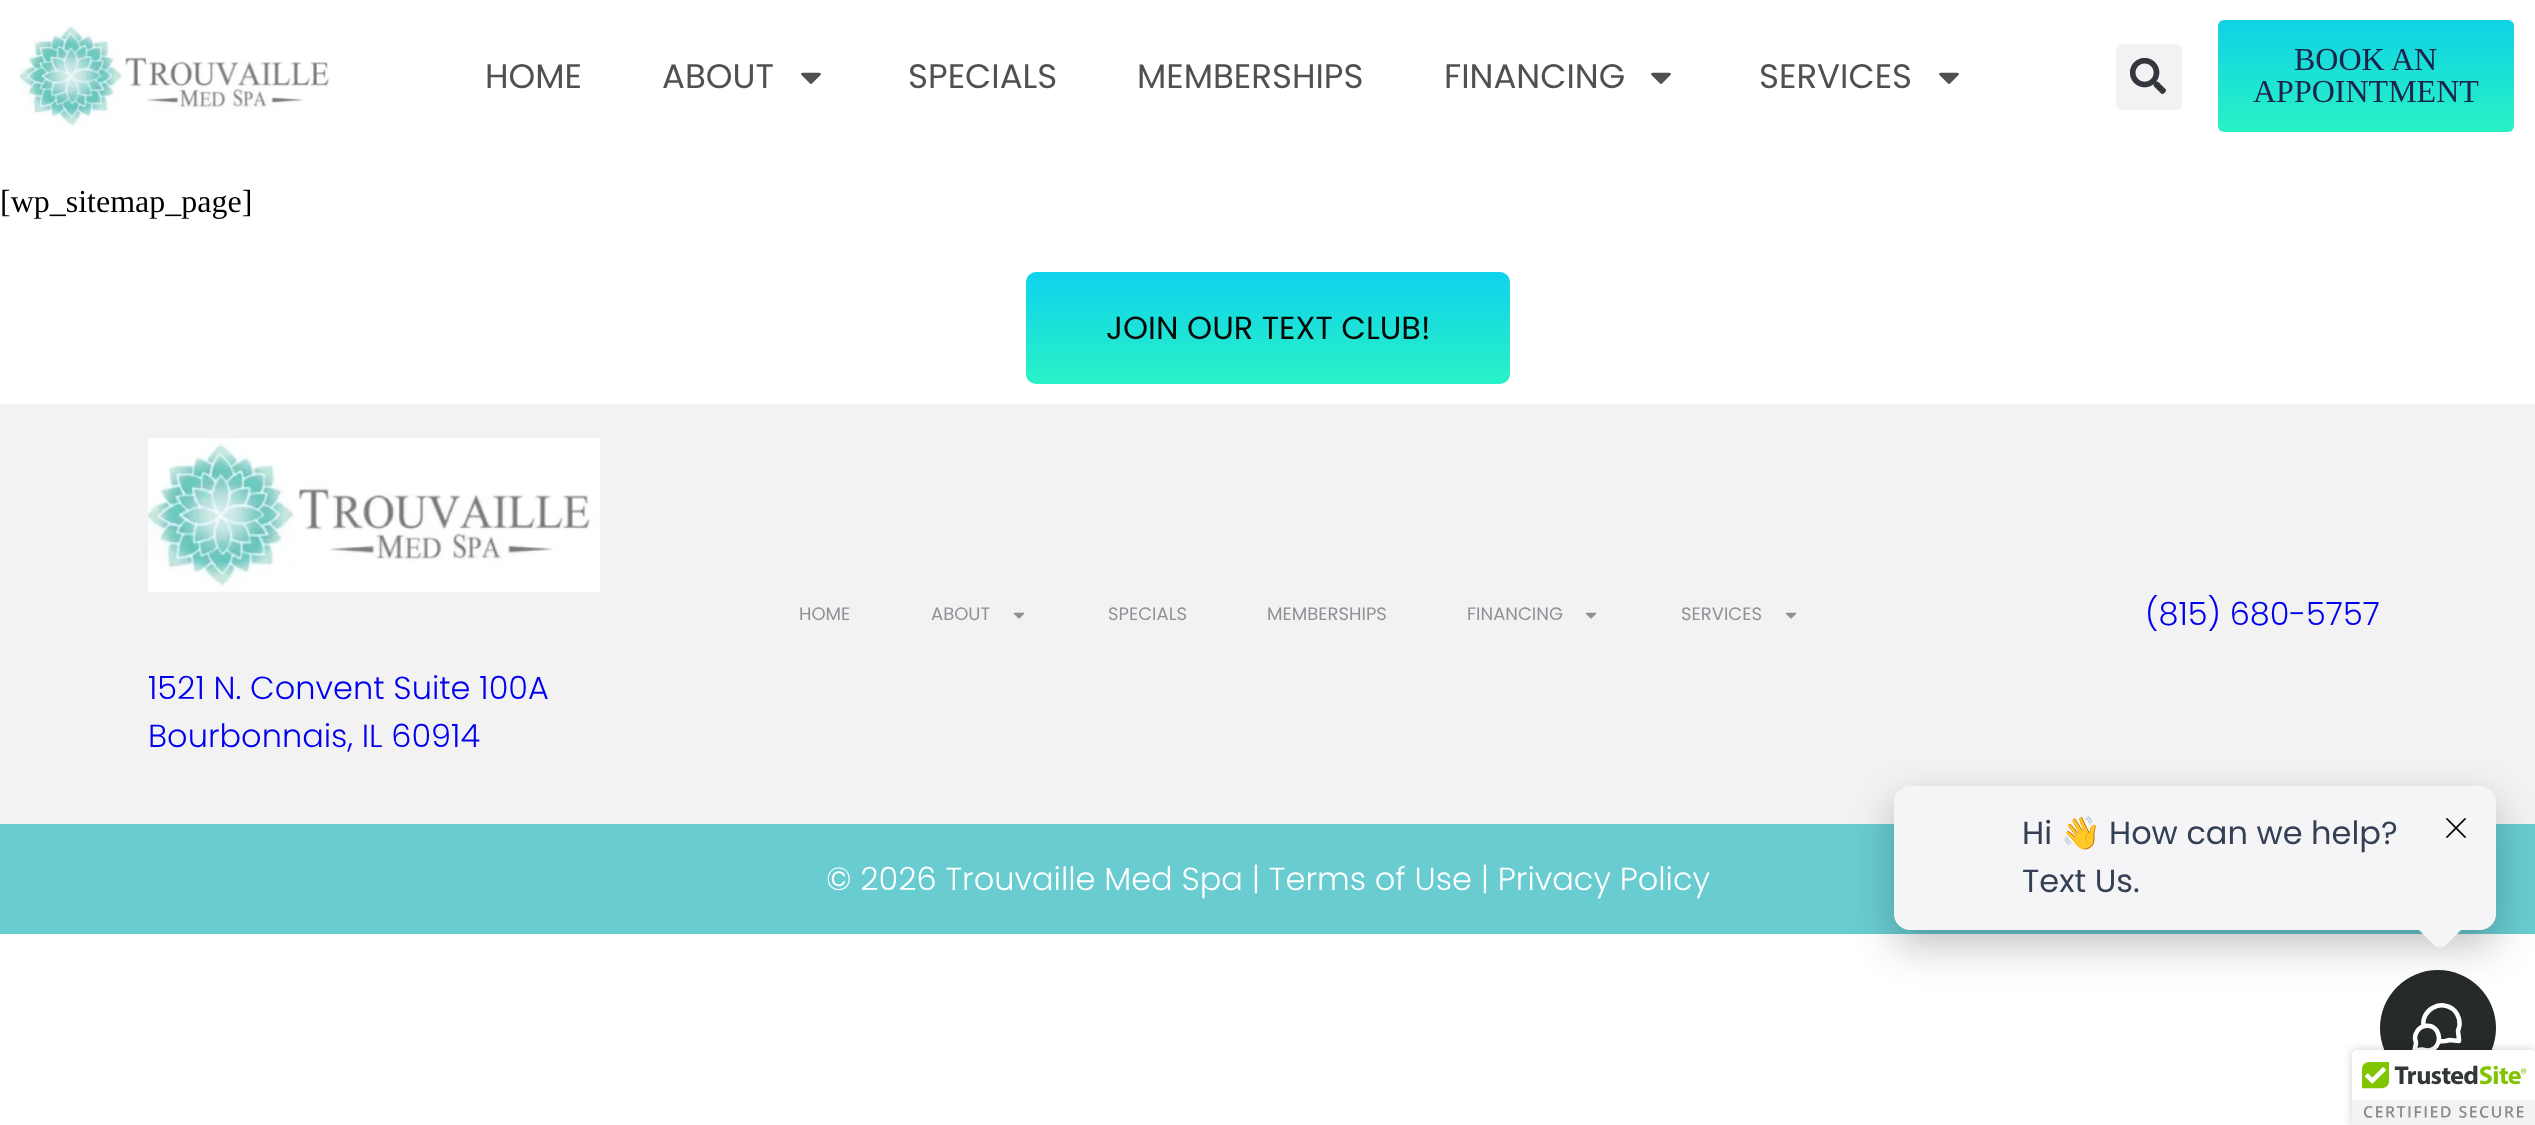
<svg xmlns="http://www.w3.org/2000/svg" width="2535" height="1125">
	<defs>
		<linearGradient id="g1" gradientUnits="userSpaceOnUse" x1="2366" y1="20" x2="2366" y2="132"><stop offset="0" stop-color="#0FD2E5" /><stop offset="1" stop-color="#29F2C5" /></linearGradient>
		<linearGradient id="g2" gradientUnits="userSpaceOnUse" x1="1268" y1="272" x2="1268" y2="384"><stop offset="0" stop-color="#0FD2ED" /><stop offset="1" stop-color="#29F2C5" /></linearGradient>
	</defs>
	<rect width="100%" height="100%" fill="#FFFFFF" />
	<text x="0" y="212" font-family="Liberation Serif" font-size="32" fill="#000000">[wp_sitemap_page]</text>
	<image x="20" y="22" width="310" height="105" href="assets/img1.png" />
	<g font-family="Poppins" font-size="34" fill="#505050">
		<text x="485" y="88">HOME</text>
		<text x="662" y="88">ABOUT</text>
	</g>
	<image x="801" y="72" width="20" height="12" href="assets/img2.png" />
	<g font-family="Poppins" font-size="34" fill="#505050">
		<text x="908" y="88">SPECIALS</text>
		<text x="1137" y="88">MEMBERSHIPS</text>
		<text x="1444" y="88">FINANCING</text>
	</g>
	<image x="1651" y="72" width="20" height="12" href="assets/img2.png" />
	<text x="1759" y="88" font-family="Poppins" font-size="34" fill="#505050">SERVICES</text>
	<image x="1939" y="72" width="20" height="12" href="assets/img2.png" />
	<rect x="2116" y="44" width="66" height="66" rx="6" fill="#F2F2F2" />
	<image x="2130" y="58" width="36" height="36" href="assets/img3.png" />
	<rect x="2218" y="20" width="296" height="112" rx="6" fill="url(#g1)" />
	<g font-family="Liberation Serif" font-size="32" fill="#1C244B">
		<text x="2294" y="70">BOOK AN</text>
		<text x="2253" y="102">APPOINTMENT</text>
	</g>
	<circle cx="2438" cy="1028" r="58" fill="#262A2B" />
	<path d="M2423.5 1026.5C2421 1009 2442 998.5 2454.5 1010.5C2458 1014.5 2459.5 1018.5 2459.5 1023.5C2460 1026 2458.5 1028.5 2458 1031L2459 1039.5V1041L2449.5 1040L2445.5 1041L2438.5 1041.5M2427 1050.5C2444.5 1050.5 2442 1022.5 2424.5 1026C2420.5 1027 2417.5 1029.5 2416 1033.5C2413.5 1039 2416 1039.5 2416 1043.5L2414.5 1050.5L2422 1049.5Z" fill="none" stroke="#FFFFFF" stroke-width="4.5" stroke-linecap="round" stroke-linejoin="round" />
	<rect x="0" y="404" width="2535" height="420" fill="#F2F2F2" />
	<rect x="0" y="824" width="2535" height="110" fill="#68CCD1" />
	<rect x="1894" y="802" width="602" height="144" rx="16" fill="#000000" fill-opacity="0.24" filter="blur(20px)" />
	<rect x="1894" y="786" width="602" height="144" rx="16" fill="#F5F5F7" />
	<text x="2022" y="844" font-family="Poppins" font-size="32" fill="#344054">Hi</text>
	<text x="2061" y="844" font-family="Noto Color Emoji" font-size="32" fill="#344054">👋</text>
	<g font-family="Poppins" font-size="32" fill="#344054">
		<text x="2109" y="844">How can we help?</text>
		<text x="2022" y="892">Text Us.</text>
	</g>
	<path d="M2446 899L2463 916C2466 919 2466 925 2463 928L2446 945C2443 948 2437 948 2434 945L2417 928C2414 925 2414 919 2417 916L2434 899C2437 896 2443 896 2446 899Z" fill="#F5F5F7" />
	<image x="2446" y="818" width="20" height="20" href="assets/img4.png" />
	<rect x="1026" y="272" width="484" height="112" rx="10" fill="url(#g2)" />
	<text x="1106" y="339" font-family="Poppins" font-size="32" fill="#030807">JOIN OUR TEXT CLUB!</text>
	<g font-family="Poppins" font-size="18" fill="#8E9297">
		<text x="799" y="620">HOME</text>
		<text x="931" y="620">ABOUT</text>
	</g>
	<image x="1013" y="612" width="12" height="7" href="assets/img5.png" />
	<g font-family="Poppins" font-size="18" fill="#8E9297">
		<text x="1108" y="620">SPECIALS</text>
		<text x="1267" y="620">MEMBERSHIPS</text>
		<text x="1467" y="620">FINANCING</text>
	</g>
	<image x="1585" y="612" width="12" height="7" href="assets/img5.png" />
	<text x="1681" y="620" font-family="Poppins" font-size="18" fill="#8E9297">SERVICES</text>
	<image x="1785" y="612" width="12" height="7" href="assets/img5.png" />
	<text x="2145" y="625" font-family="Poppins" font-size="32" font-weight="300" fill="#0000EE">(815) 680-5757</text>
	<image x="148" y="438" width="452" height="154" href="assets/img6.png" />
	<g font-family="Poppins" font-size="32" font-weight="300" fill="#0000EE">
		<text x="148" y="699">1521 N. Convent Suite 100A</text>
		<text x="148" y="747">Bourbonnais, IL 60914</text>
	</g>
	<text x="826" y="890" font-family="Poppins" font-size="32" font-weight="300" fill="#FFFFFF">© 2026 Trouvaille Med Spa | Terms of Use | Privacy Policy</text>
	<rect x="2352" y="1050" width="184" height="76" rx="4" fill="#000000" fill-opacity="0.2" filter="blur(5px)" />
	<path d="M2356 1050H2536V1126H2352V1054C2352 1052 2354 1050 2356 1050Z" fill="#FFFFFF" />
	<image x="2352" y="1050" width="183" height="75" href="assets/img7.png" />
</svg>
